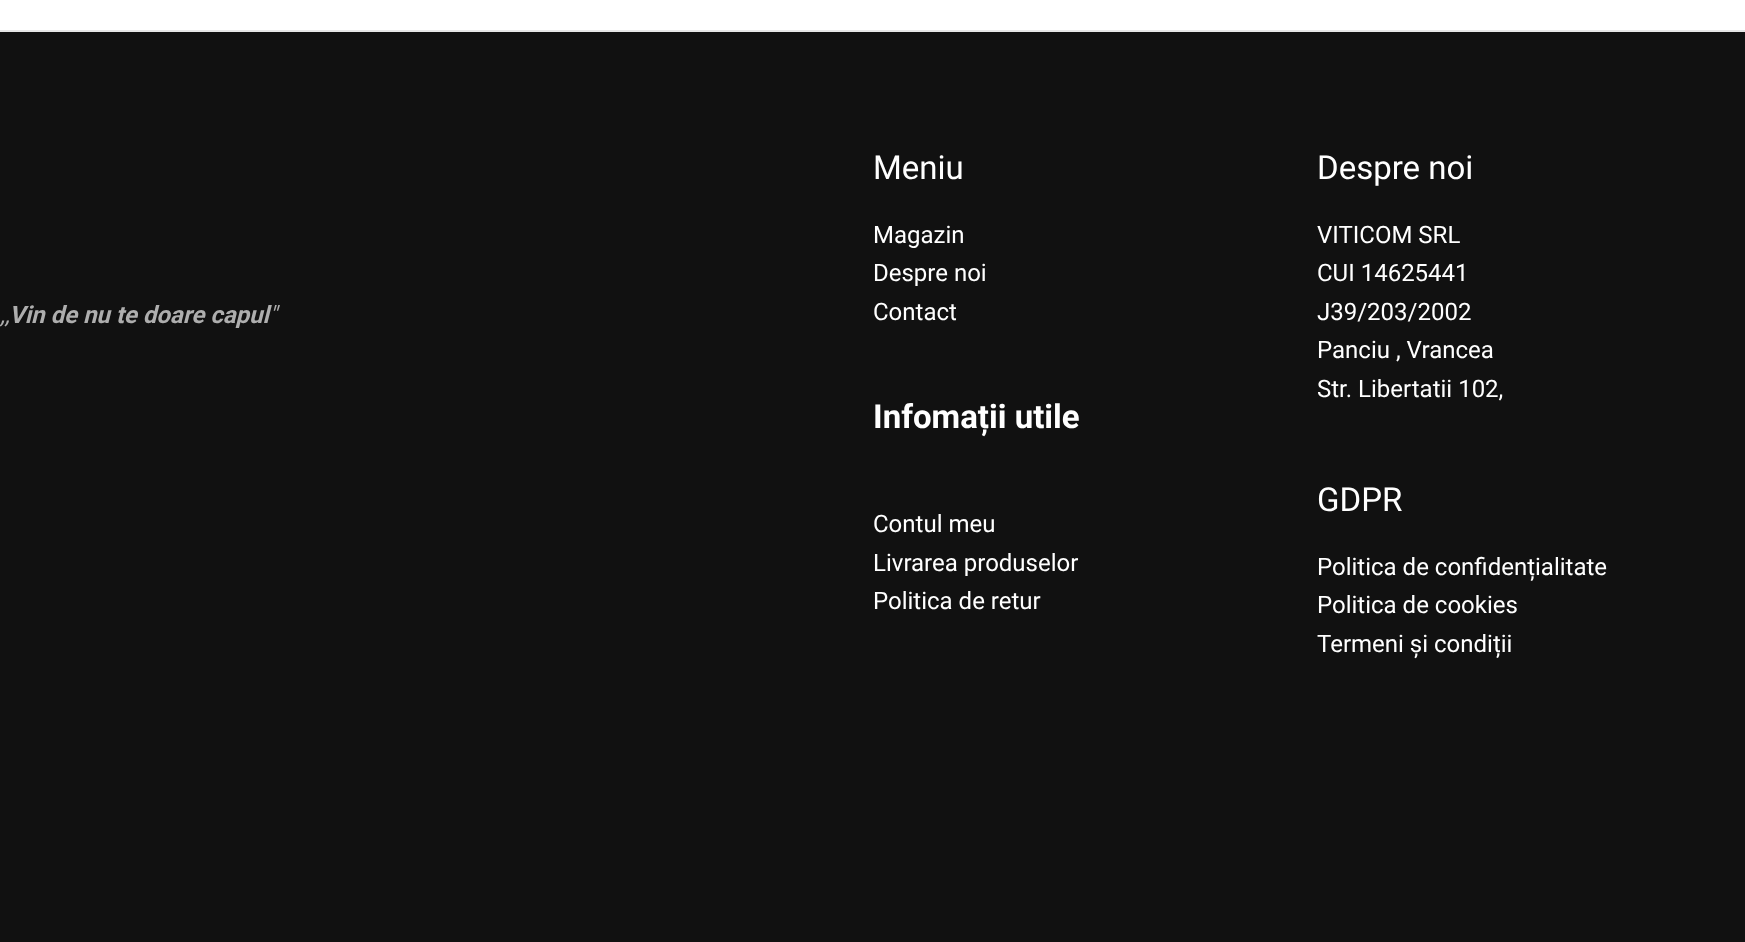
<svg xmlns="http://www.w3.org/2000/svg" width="1745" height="942">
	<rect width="100%" height="100%" fill="#FFFFFF" />
	<rect x="0" y="32" width="1745" height="910" fill="#111111" />
	<rect x="0" y="30" width="1745" height="2" fill="#E6E6E6" />
	<text x="9" y="323" font-family="Roboto" font-size="24" font-weight="700" font-style="italic" fill="#AEAEAE">Vin de nu te doare capul</text>
	<g font-family="Roboto" font-size="24" font-style="italic" fill="#AEAEAE">
		<text x="269" y="323">"</text>
		<text x="0" y="323">,,</text>
	</g>
	<text x="873" y="179" font-family="Roboto" font-size="33" fill="#FFFFFF">Meniu</text>
	<g font-family="Roboto" font-size="24" fill="#FFFFFF">
		<text x="873" y="243">Magazin</text>
		<text x="873" y="281">Despre noi</text>
		<text x="873" y="320">Contact</text>
	</g>
	<text x="873" y="428" font-family="Roboto" font-size="33" font-weight="700" fill="#FFFFFF">Infomații utile</text>
	<g font-family="Roboto" font-size="24" fill="#FFFFFF">
		<text x="873" y="532">Contul meu</text>
		<text x="873" y="571">Livrarea produselor</text>
		<text x="873" y="609">Politica de retur</text>
	</g>
	<text x="1317" y="179" font-family="Roboto" font-size="33" fill="#FFFFFF">Despre noi</text>
	<g font-family="Roboto" font-size="24" fill="#FFFFFF">
		<text x="1317" y="243">VITICOM SRL</text>
		<text x="1317" y="281">CUI 14625441</text>
		<text x="1317" y="320">J39/203/2002</text>
		<text x="1317" y="358">Panciu , Vrancea</text>
		<text x="1317" y="397">Str. Libertatii 102,</text>
	</g>
	<text x="1317" y="511" font-family="Roboto" font-size="33" fill="#FFFFFF">GDPR</text>
	<g font-family="Roboto" font-size="24" fill="#FFFFFF">
		<text x="1317" y="575">Politica de confidențialitate</text>
		<text x="1317" y="613">Politica de cookies</text>
		<text x="1317" y="652">Termeni și condiții</text>
	</g>
</svg>
